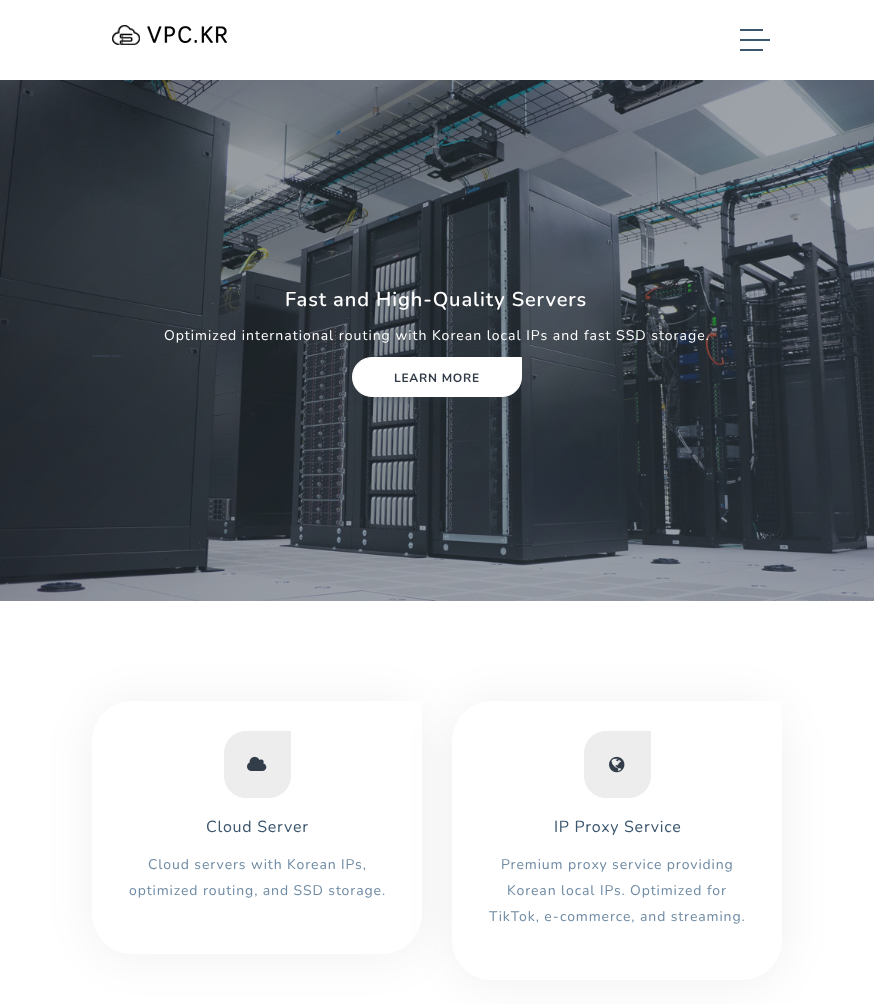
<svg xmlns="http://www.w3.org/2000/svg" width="874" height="1004">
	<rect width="100%" height="100%" fill="#FFFFFF" />
	<image x="112" y="25" width="115" height="20" href="assets/img1.png" />
	<rect x="740" y="39" width="30" height="2" fill="#3B566E" />
	<rect x="740" y="29" width="23" height="2" fill="#3B566E" />
	<rect x="740" y="49" width="23" height="2" fill="#3B566E" />
	<image x="0" y="80" width="874" height="521" href="assets/img2.png" />
	<text x="285" y="306" font-family="Nunito" font-size="20" font-weight="600" letter-spacing="0.9" fill="#FFFFFF">Fast and High-Quality Servers</text>
	<text x="164" y="340" font-family="Nunito" font-size="14" letter-spacing="1" fill="#FFFFFF">Optimized international routing with Korean local IPs and fast SSD storage.</text>
	<rect x="92" y="355" width="19" height="2" rx="1" fill="#333D49" />
	<rect x="112" y="355" width="9" height="2" rx="1" fill="#333D49" />
	<rect x="352" y="361" width="170" height="40" rx="20" fill="#333D49" fill-opacity="0.24" filter="blur(2.5px)" />
	<path d="M372 357.5H521.5V377C521.5 388 513 396.5 502 396.5H372C361 396.5 352.5 388 352.5 377C352.5 366 361 357.5 372 357.5Z" fill="#FFFFFF" stroke="#FFFFFF" />
	<text x="394" y="382" font-family="Nunito" font-size="12" font-weight="700" letter-spacing="0.75" fill="#333D49">LEARN MORE</text>
	<rect x="92" y="703" width="330" height="253" rx="40" fill="#000000" fill-opacity="0.06" filter="blur(24px)" />
	<path d="M132 701H422V914C422 936 404 954 382 954H132C110 954 92 936 92 914V741C92 719 110 701 132 701Z" fill="#FFFFFF" />
	<path d="M246 731H291V776C291 788 281 798 269 798H246C234 798 224 788 224 776V753C224 741 234 731 246 731Z" fill="#EDEDED" />
	<image x="247" y="756" width="20" height="15" href="assets/img3.png" />
	<text x="206" y="832" font-family="Nunito" font-size="16" letter-spacing="0.75" fill="#3B566E">Cloud Server</text>
	<text x="148" y="869" font-family="Nunito" font-size="14" letter-spacing="0.9" fill="#6F8BA4">Cloud servers with Korean IPs,</text>
	<rect x="452" y="703" width="330" height="279" rx="40" fill="#000000" fill-opacity="0.06" filter="blur(24px)" />
	<text x="129" y="895" font-family="Nunito" font-size="14" letter-spacing="0.9" fill="#6F8BA4">optimized routing, and SSD storage.</text>
	<path d="M492 701H782V940C782 962 764 980 742 980H492C470 980 452 962 452 940V741C452 719 470 701 492 701Z" fill="#FFFFFF" />
	<path d="M606 731H651V776C651 788 641 798 629 798H606C594 798 584 788 584 776V753C584 741 594 731 606 731Z" fill="#EDEDED" />
	<image x="609" y="756" width="16" height="17" href="assets/img4.png" />
	<text x="554" y="832" font-family="Nunito" font-size="16" letter-spacing="0.75" fill="#3B566E">IP Proxy Service</text>
	<g font-family="Nunito" font-size="14" letter-spacing="0.9" fill="#6F8BA4">
		<text x="501" y="869">Premium proxy service providing</text>
		<text x="507" y="895">Korean local IPs. Optimized for</text>
		<text x="489" y="921">TikTok, e-commerce, and streaming.</text>
	</g>
</svg>
